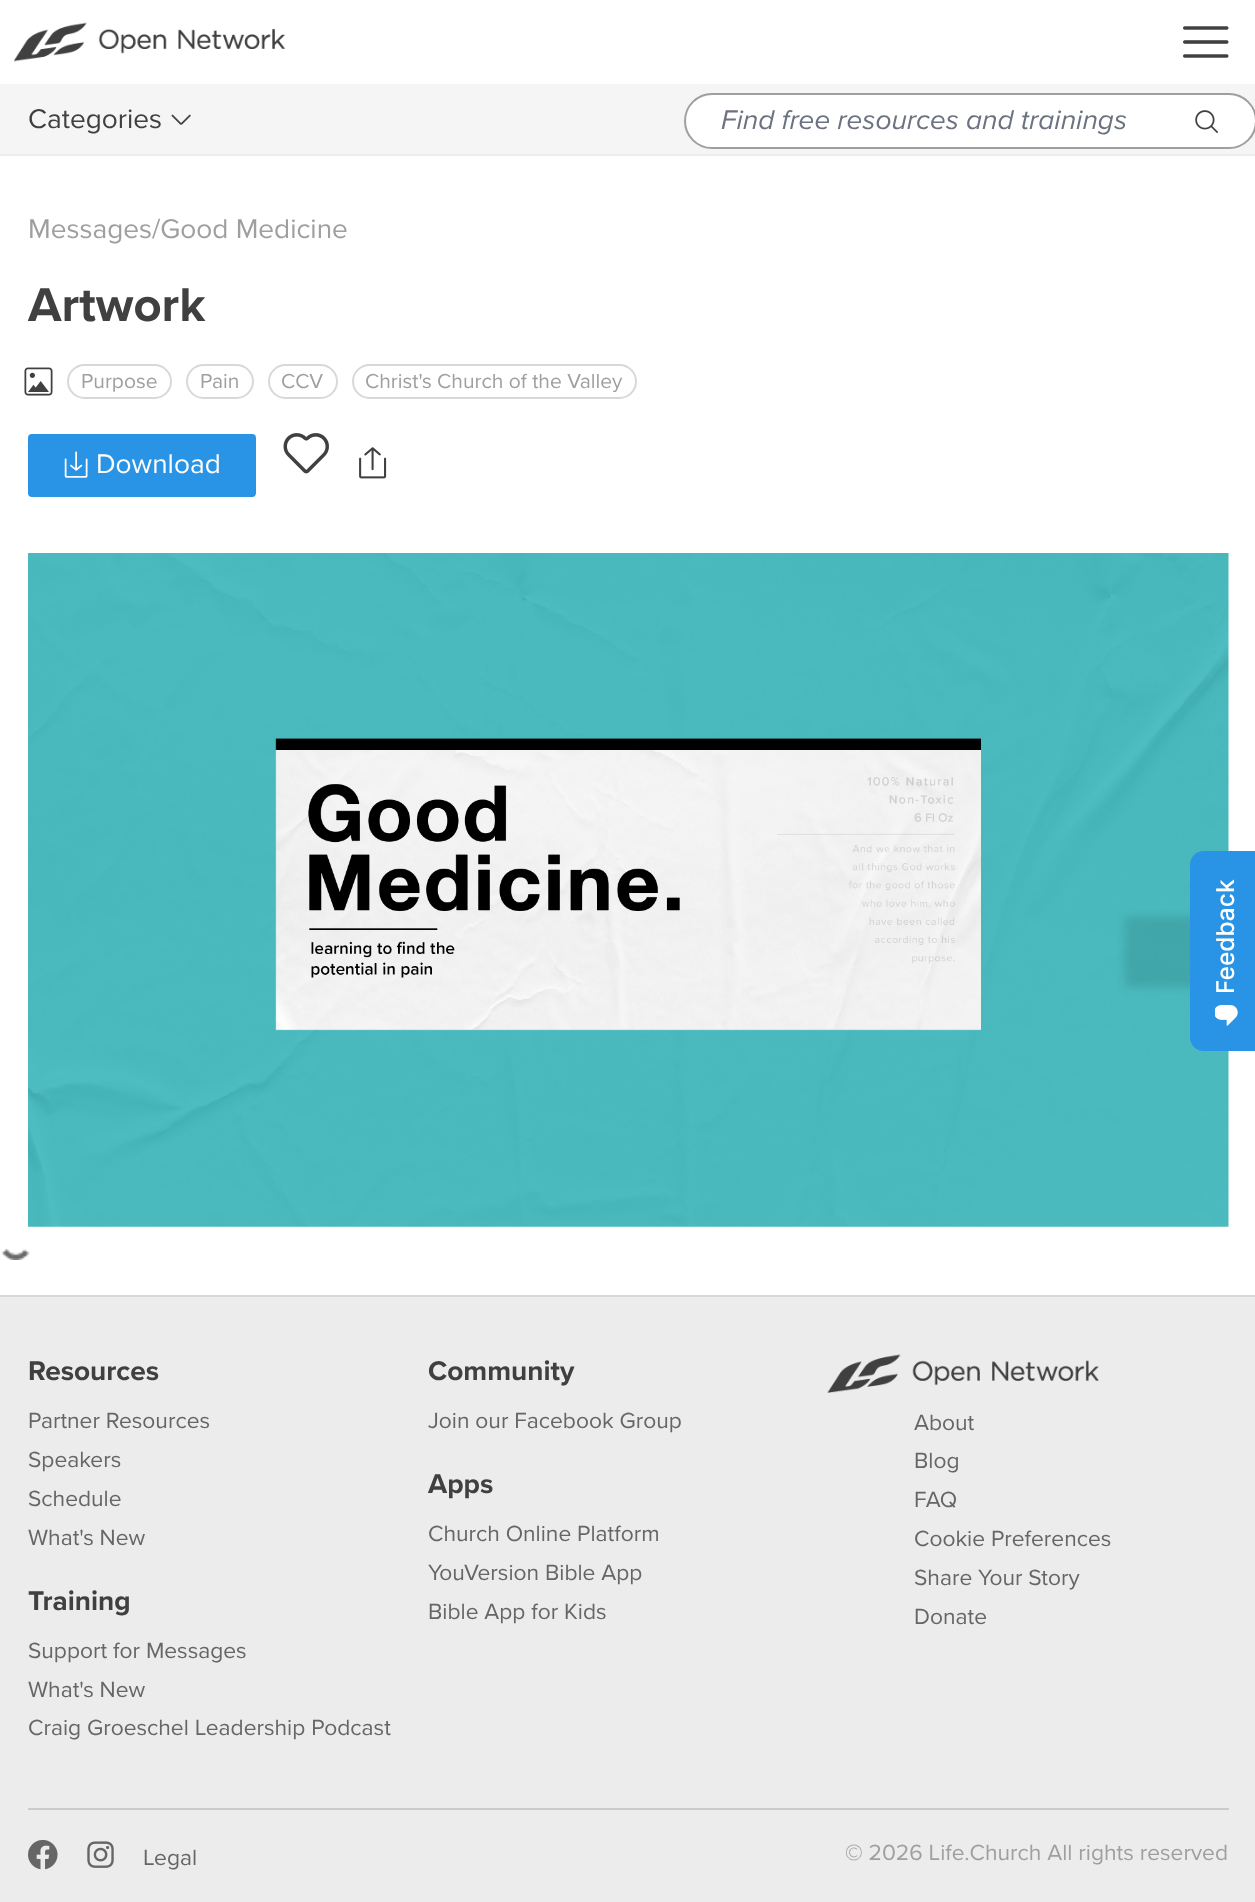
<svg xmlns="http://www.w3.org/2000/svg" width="1255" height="1902">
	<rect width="100%" height="100%" fill="#FFFFFF" />
	<image x="14" y="22" width="272" height="40" href="assets/img1.png" />
	<image x="1183" y="26" width="46" height="32" href="assets/img2.png" />
	<path d="M0 154V156H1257V86H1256V154Z" fill="#ECECEC" />
	<rect x="0" y="84" width="1255" height="70" fill="#F5F5F5" />
	<text x="28" y="128" font-family="Proxima Nova" font-size="28" fill="#404041">Categories</text>
	<image x="171" y="114" width="20" height="11" href="assets/img3.png" />
	<rect x="685" y="94" width="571" height="54" rx="27" fill="#FFFFFF" stroke="#9F9FA0" stroke-width="2" />
	<text x="721" y="129" font-family="Proxima Nova" font-size="28" font-style="italic" fill="#6B7280">Find free resources and trainings</text>
	<image x="1195" y="110" width="23" height="23" href="assets/img4.png" />
	<text x="28" y="238" font-family="Proxima Nova" font-size="28" fill="#9F9FA0">Messages/Good Medicine</text>
	<text x="28" y="321" font-family="Proxima Nova" font-size="49" font-weight="700" fill="#404041">Artwork</text>
	<image x="24" y="367" width="29" height="29" href="assets/img5.png" />
	<rect x="68" y="365" width="103" height="33" rx="16.5" fill="none" stroke="#D8D8D9" stroke-width="2" />
	<text x="81" y="388" font-family="Proxima Nova" font-size="21" fill="#9F9FA0">Purpose</text>
	<rect x="187" y="365" width="66" height="33" rx="16.5" fill="none" stroke="#D8D8D9" stroke-width="2" />
	<text x="200" y="388" font-family="Proxima Nova" font-size="21" fill="#9F9FA0">Pain</text>
	<rect x="269" y="365" width="68" height="33" rx="16.5" fill="none" stroke="#D8D8D9" stroke-width="2" />
	<text x="281" y="388" font-family="Proxima Nova" font-size="21" fill="#9F9FA0">CCV</text>
	<rect x="353" y="365" width="283" height="33" rx="16.5" fill="none" stroke="#D8D8D9" stroke-width="2" />
	<text x="365" y="388" font-family="Proxima Nova" font-size="21" fill="#9F9FA0">Christ's Church of the Valley</text>
	<rect x="28" y="434" width="228" height="63" rx="4" fill="#2993E5" />
	<image x="64" y="451" width="24" height="27" href="assets/img6.png" />
	<text x="96" y="473" font-family="Proxima Nova" font-size="28" fill="#FFFFFF">Download</text>
	<image x="283" y="433" width="46" height="41" href="assets/img7.png" />
	<image x="359" y="447" width="28" height="32" href="assets/img8.png" />
	<image x="28" y="553" width="1201" height="674" href="assets/img9.png" />
	<image x="1" y="1248" width="29" height="12" href="assets/img10.png" />
	<rect x="1125" y="917" width="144" height="70" fill="#000000" fill-opacity="0.1" filter="blur(4.5px)" />
	<path d="M1190 1037V865C1190 857 1196 851 1204 851H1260V1051H1204C1196 1051 1190 1045 1190 1037Z" fill="#2993E5" />
	<text x="1234" y="994" transform="rotate(-90 1234 994)" font-family="Inter" font-size="24.5" font-weight="500" fill="#FFFFFF">Feedback</text>
	<image x="1215" y="1005" width="23" height="21" href="assets/img11.png" />
	<rect x="0" y="1297" width="1255" height="605" fill="#ECECEC" />
	<rect x="0" y="1295" width="1255" height="2" fill="#D8D8D9" />
	<text x="28" y="1380" font-family="Proxima Nova" font-size="28" font-weight="700" fill="#404041">Resources</text>
	<g font-family="Proxima Nova" font-size="22.75" fill="#666667">
		<text x="28" y="1428">Partner Resources</text>
		<text x="28" y="1467">Speakers</text>
		<text x="28" y="1506">Schedule</text>
		<text x="28" y="1545">What's New</text>
	</g>
	<text x="28" y="1610" font-family="Proxima Nova" font-size="28" font-weight="700" fill="#404041">Training</text>
	<g font-family="Proxima Nova" font-size="22.75" fill="#666667">
		<text x="28" y="1658">Support for Messages</text>
		<text x="28" y="1697">What's New</text>
		<text x="28" y="1735">Craig Groeschel Leadership Podcast</text>
	</g>
	<text x="428" y="1380" font-family="Proxima Nova" font-size="28" font-weight="700" fill="#404041">Community</text>
	<text x="428" y="1428" font-family="Proxima Nova" font-size="22.75" fill="#666667">Join our Facebook Group</text>
	<text x="428" y="1493" font-family="Proxima Nova" font-size="28" font-weight="700" fill="#404041">Apps</text>
	<g font-family="Proxima Nova" font-size="22.75" fill="#666667">
		<text x="428" y="1541">Church Online Platform</text>
		<text x="428" y="1580">YouVersion Bible App</text>
		<text x="428" y="1619">Bible App for Kids</text>
	</g>
	<image x="827" y="1354" width="272" height="39" href="assets/img12.png" />
	<g font-family="Proxima Nova" font-size="22.75" fill="#666667">
		<text x="914" y="1430">About</text>
		<text x="914" y="1468">Blog</text>
		<text x="914" y="1507">FAQ</text>
		<text x="914" y="1546">Cookie Preferences</text>
		<text x="914" y="1585">Share Your Story</text>
		<text x="914" y="1624">Donate</text>
	</g>
	<rect x="28" y="1808" width="1201" height="2" fill="#CBCBCB" />
	<image x="28" y="1839" width="30" height="31" href="assets/img13.png" />
	<image x="87" y="1841" width="27" height="27" href="assets/img14.png" />
	<text x="143" y="1865" font-family="Proxima Nova" font-size="22.75" fill="#666667">Legal</text>
	<text x="845" y="1860" font-family="Proxima Nova" font-size="22.75" fill="#9F9FA0">© 2026 Life.Church All rights reserved</text>
</svg>
